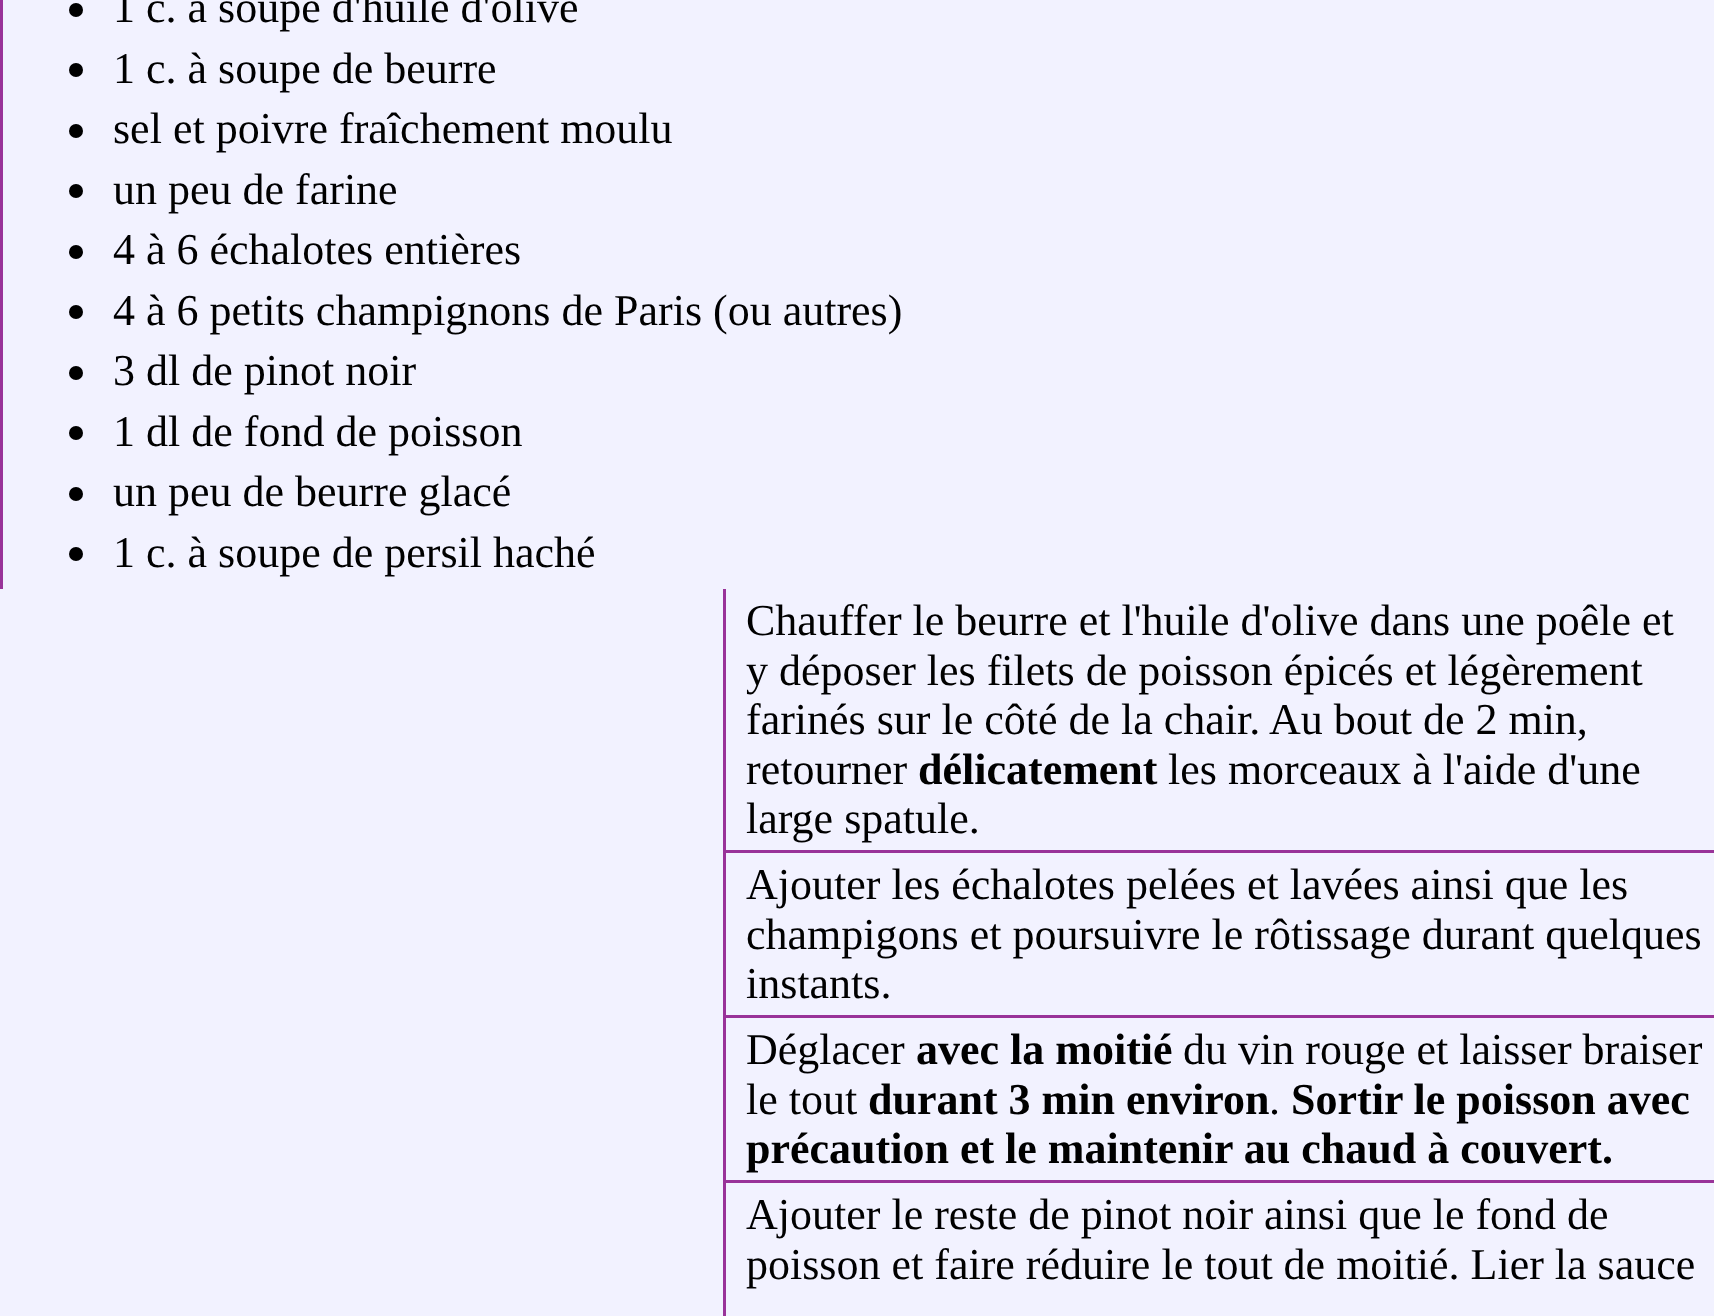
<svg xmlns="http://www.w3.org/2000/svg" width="1714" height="1316">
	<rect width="100%" height="100%" fill="#F2F2FF" />
	<rect x="0" y="0" width="3" height="589" fill="#993399" />
	<circle cx="76" cy="10" r="7" fill="#000000" />
	<text x="113" y="22" font-family="Liberation Serif" font-size="44" fill="#000000">1 c. à soupe d'huile d'olive</text>
	<circle cx="76" cy="70" r="7" fill="#000000" />
	<text x="113" y="83" font-family="Liberation Serif" font-size="44" fill="#000000">1 c. à soupe de beurre</text>
	<circle cx="76" cy="131" r="7" fill="#000000" />
	<text x="113" y="143" font-family="Liberation Serif" font-size="44" fill="#000000">sel et poivre fraîchement moulu</text>
	<circle cx="76" cy="191" r="7" fill="#000000" />
	<text x="113" y="204" font-family="Liberation Serif" font-size="44" fill="#000000">un peu de farine</text>
	<circle cx="76" cy="252" r="7" fill="#000000" />
	<text x="113" y="264" font-family="Liberation Serif" font-size="44" fill="#000000">4 à 6 échalotes entières</text>
	<circle cx="76" cy="312" r="7" fill="#000000" />
	<text x="113" y="325" font-family="Liberation Serif" font-size="44" fill="#000000">4 à 6 petits champignons de Paris (ou autres)</text>
	<circle cx="76" cy="373" r="7" fill="#000000" />
	<text x="113" y="385" font-family="Liberation Serif" font-size="44" fill="#000000">3 dl de pinot noir</text>
	<circle cx="76" cy="433" r="7" fill="#000000" />
	<text x="113" y="446" font-family="Liberation Serif" font-size="44" fill="#000000">1 dl de fond de poisson</text>
	<circle cx="76" cy="494" r="7" fill="#000000" />
	<text x="113" y="506" font-family="Liberation Serif" font-size="44" fill="#000000">un peu de beurre glacé</text>
	<circle cx="76" cy="554" r="7" fill="#000000" />
	<text x="113" y="567" font-family="Liberation Serif" font-size="44" fill="#000000">1 c. à soupe de persil haché</text>
	<rect x="723" y="589" width="3" height="727" fill="#993399" />
	<g font-family="Liberation Serif" font-size="44" fill="#000000">
		<text x="746" y="635">Chauffer le beurre et l'huile d'olive dans une poêle et</text>
		<text x="746" y="685">y déposer les filets de poisson épicés et légèrement</text>
		<text x="746" y="734">farinés sur le côté de la chair. Au bout de 2 min,</text>
		<text x="746" y="784">retourner</text>
	</g>
	<text x="918" y="784" font-family="Liberation Serif" font-size="44" font-weight="700" fill="#000000">délicatement</text>
	<g font-family="Liberation Serif" font-size="44" fill="#000000">
		<text x="1168" y="784">les morceaux à l'aide d'une</text>
		<text x="746" y="833">large spatule.</text>
	</g>
	<rect x="726" y="850" width="988" height="3" fill="#993399" />
	<g font-family="Liberation Serif" font-size="44" fill="#000000">
		<text x="746" y="899">Ajouter les échalotes pelées et lavées ainsi que les</text>
		<text x="746" y="949">champigons et poursuivre le rôtissage durant quelques</text>
		<text x="746" y="998">instants.</text>
	</g>
	<rect x="726" y="1015" width="988" height="3" fill="#993399" />
	<text x="746" y="1064" font-family="Liberation Serif" font-size="44" fill="#000000">Déglacer</text>
	<text x="916" y="1064" font-family="Liberation Serif" font-size="44" font-weight="700" fill="#000000">avec la moitié</text>
	<g font-family="Liberation Serif" font-size="44" fill="#000000">
		<text x="1183" y="1064">du vin rouge et laisser braiser</text>
		<text x="746" y="1114">le tout</text>
	</g>
	<text x="868" y="1114" font-family="Liberation Serif" font-size="44" font-weight="700" fill="#000000">durant 3 min environ</text>
	<text x="1269" y="1114" font-family="Liberation Serif" font-size="44" fill="#000000">.</text>
	<g font-family="Liberation Serif" font-size="44" font-weight="700" fill="#000000">
		<text x="1291" y="1114">Sortir le poisson avec</text>
		<text x="746" y="1163">précaution et le maintenir au chaud à couvert.</text>
	</g>
	<rect x="726" y="1180" width="988" height="3" fill="#993399" />
	<g font-family="Liberation Serif" font-size="44" fill="#000000">
		<text x="746" y="1229">Ajouter le reste de pinot noir ainsi que le fond de</text>
		<text x="746" y="1279">poisson et faire réduire le tout de moitié. Lier la sauce</text>
	</g>
</svg>
